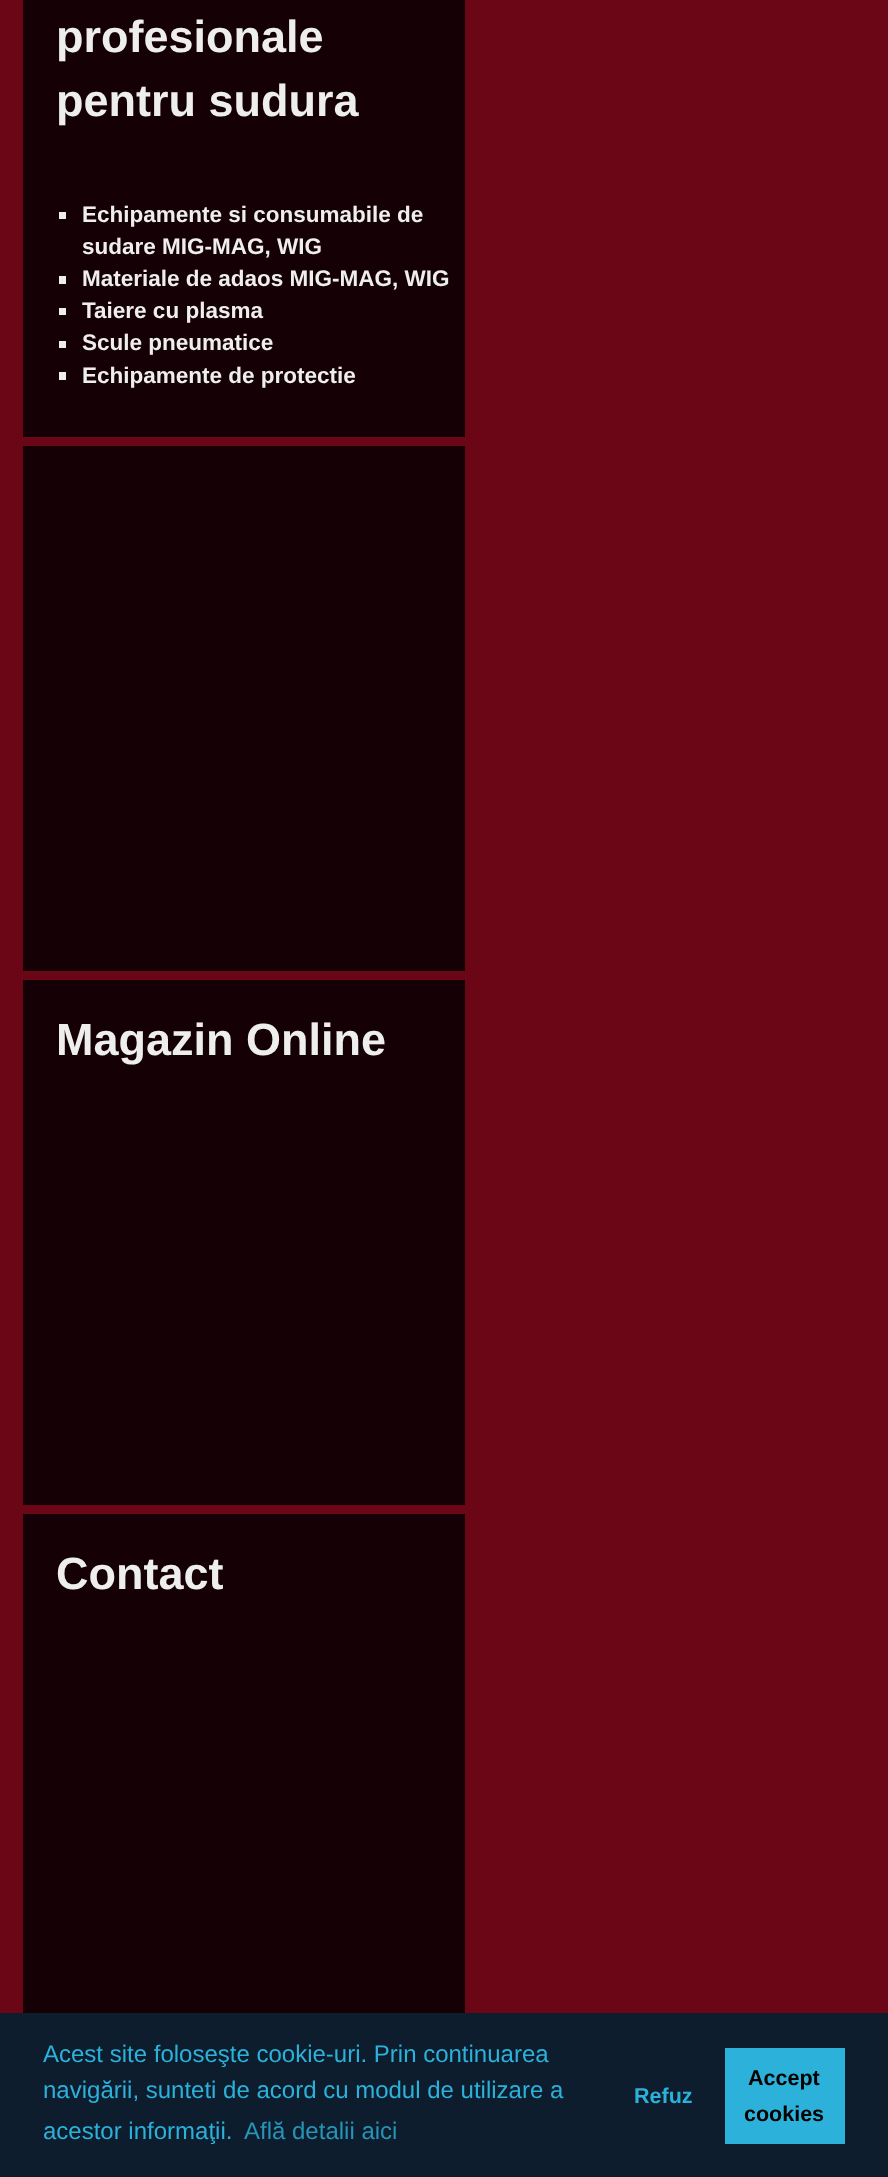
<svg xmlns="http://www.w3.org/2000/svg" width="888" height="2177">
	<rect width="100%" height="100%" fill="#6B0617" />
	<rect x="23" y="0" width="442" height="437" fill="#150105" />
	<g font-family="Liberation Sans" font-size="45" font-weight="700" fill="#EEEEEE">
		<text x="56" y="52">profesionale</text>
		<text x="56" y="116">pentru sudura</text>
	</g>
	<rect x="59" y="212" width="7" height="7" fill="#EEEEEE" />
	<g font-family="Liberation Sans" font-size="22.5" font-weight="700" fill="#EEEEEE">
		<text x="82" y="222">Echipamente si consumabile de</text>
		<text x="82" y="254">sudare MIG-MAG, WIG</text>
	</g>
	<rect x="59" y="276" width="7" height="8" fill="#EEEEEE" />
	<text x="82" y="286" font-family="Liberation Sans" font-size="22.5" font-weight="700" fill="#EEEEEE">Materiale de adaos MIG-MAG, WIG</text>
	<rect x="59" y="308" width="7" height="7" fill="#EEEEEE" />
	<text x="82" y="318" font-family="Liberation Sans" font-size="22.5" font-weight="700" fill="#EEEEEE">Taiere cu plasma</text>
	<rect x="59" y="341" width="7" height="7" fill="#EEEEEE" />
	<text x="82" y="350" font-family="Liberation Sans" font-size="22.5" font-weight="700" fill="#EEEEEE">Scule pneumatice</text>
	<rect x="59" y="372" width="7" height="8" fill="#EEEEEE" />
	<text x="82" y="383" font-family="Liberation Sans" font-size="22.5" font-weight="700" fill="#EEEEEE">Echipamente de protectie</text>
	<rect x="23" y="446" width="442" height="525" fill="#150105" />
	<rect x="23" y="980" width="442" height="525" fill="#150105" />
	<text x="56" y="1055" font-family="Liberation Sans" font-size="45" font-weight="700" fill="#EEEEEE">Magazin Online</text>
	<rect x="23" y="1514" width="442" height="499" fill="#150105" />
	<text x="56" y="1589" font-family="Liberation Sans" font-size="45" font-weight="700" fill="#EEEEEE">Contact</text>
	<rect x="0" y="2013" width="888" height="164" fill="#0D1D2D" />
	<g font-family="Liberation Sans" font-size="24" fill="#2CB1DA">
		<text x="43" y="2062">Acest site foloseşte cookie-uri. Prin continuarea</text>
		<text x="43" y="2098">navigării, sunteti de acord cu modul de utilizare a</text>
		<text x="43" y="2139">acestor informaţii.</text>
	</g>
	<text x="244" y="2139" font-family="Liberation Sans" font-size="24" fill="#2693B7">Află detalii aici</text>
	<text x="634" y="2103" font-family="Liberation Sans" font-size="21.5" font-weight="700" fill="#2CB1DA">Refuz</text>
	<rect x="725" y="2048" width="120" height="96" fill="#2CB1DA" />
	<g font-family="Liberation Sans" font-size="21.5" font-weight="700" fill="#000000">
		<text x="748" y="2085">Accept</text>
		<text x="744" y="2121">cookies</text>
	</g>
</svg>
